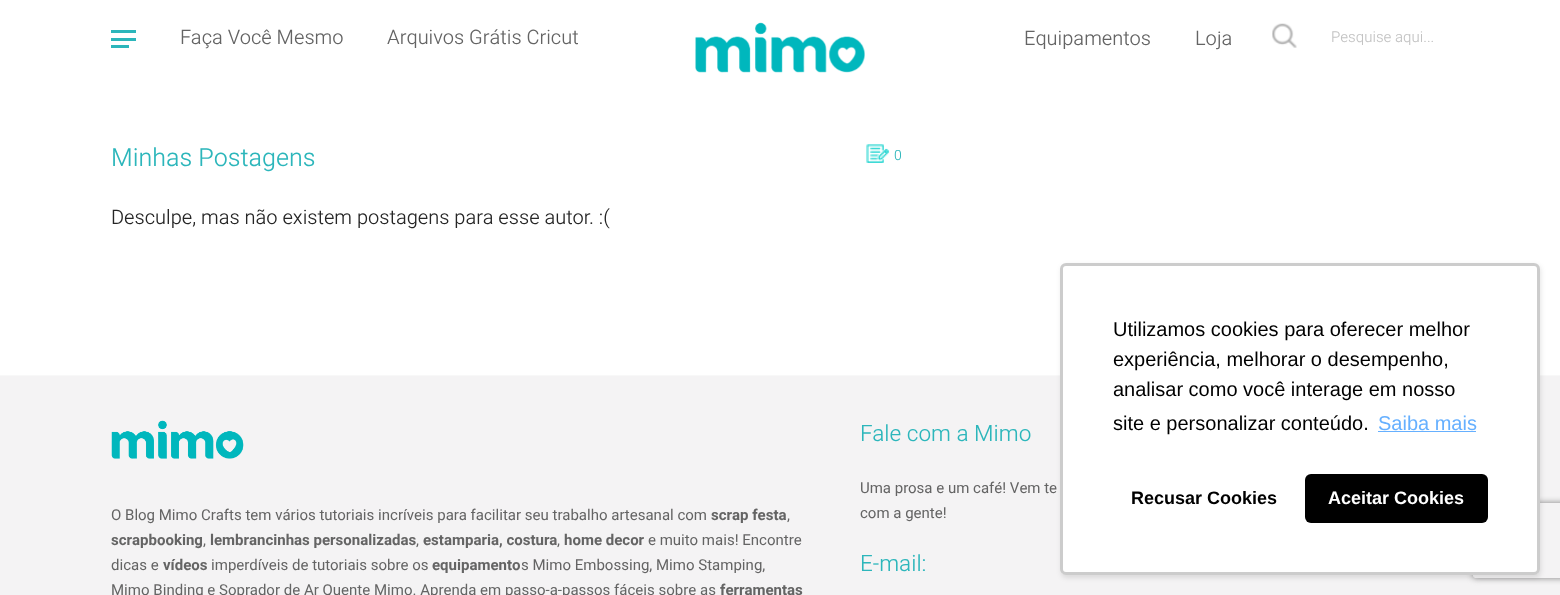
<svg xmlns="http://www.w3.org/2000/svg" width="1560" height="595">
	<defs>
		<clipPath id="clip1"><path d="M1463 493H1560V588H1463ZM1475.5 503H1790.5C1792 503 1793 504 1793 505.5V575.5C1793 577 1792 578 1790.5 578H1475.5C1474 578 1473 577 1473 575.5V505.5C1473 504 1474 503 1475.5 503Z" clip-rule="evenodd" /></clipPath>
	</defs>
	<rect width="100%" height="100%" fill="#FFFFFF" />
	<rect x="111" y="30" width="25" height="3" fill="#2CB6BB" />
	<rect x="111" y="38" width="25" height="3" fill="#2CB6BB" />
	<rect x="111" y="45" width="18" height="3" fill="#2CB6BB" />
	<g font-family="Heebo" font-size="20" font-weight="300" fill="#646464">
		<text x="180" y="44">Faça Você Mesmo</text>
		<text x="387" y="44">Arquivos Grátis Cricut</text>
	</g>
	<image x="695" y="22" width="170" height="51" href="assets/img1.png" />
	<g font-family="Heebo" font-size="20" font-weight="300" fill="#646464">
		<text x="1024" y="45">Equipamentos</text>
		<text x="1195" y="45">Loja</text>
	</g>
	<image x="1272" y="23" width="25" height="25" href="assets/img2.png" />
	<text x="1331" y="42" font-family="Heebo" font-size="15" font-weight="300" fill="#C3C3C3">Pesquise aqui...</text>
	<text x="111" y="166" font-family="Heebo" font-size="25" font-weight="300" fill="#2CB6BB">Minhas Postagens</text>
	<image x="866" y="144" width="24" height="19" href="assets/img3.png" />
	<text x="894" y="160" font-family="Heebo" font-size="14" font-weight="300" fill="#2CB6BB">0</text>
	<text x="111" y="224" font-family="Heebo" font-size="20" font-weight="300" fill="#262626">Desculpe, mas não existem postagens para esse autor. :(</text>
	<rect x="0" y="376" width="1560" height="219" fill="#F4F3F4" />
	<rect x="0" y="375" width="1560" height="1" fill="#F8F8F8" />
	<image x="111" y="420" width="133" height="39" href="assets/img4.png" />
	<text x="111" y="520" font-family="Heebo" font-size="15" fill="#646464">O Blog Mimo Crafts tem vários tutoriais incríveis para facilitar seu trabalho artesanal com</text>
	<text x="711" y="520" font-family="Heebo" font-size="15" font-weight="700" fill="#646464">scrap festa</text>
	<text x="787" y="520" font-family="Heebo" font-size="15" fill="#646464">,</text>
	<text x="111" y="545" font-family="Heebo" font-size="15" font-weight="700" fill="#646464">scrapbooking</text>
	<text x="203" y="545" font-family="Heebo" font-size="15" fill="#646464">,</text>
	<text x="210" y="545" font-family="Heebo" font-size="15" font-weight="700" fill="#646464">lembrancinhas personalizadas</text>
	<text x="416" y="545" font-family="Heebo" font-size="15" fill="#646464">,</text>
	<text x="423" y="545" font-family="Heebo" font-size="15" font-weight="700" fill="#646464">estamparia, costura</text>
	<text x="557" y="545" font-family="Heebo" font-size="15" fill="#646464">,</text>
	<text x="564" y="545" font-family="Heebo" font-size="15" font-weight="700" fill="#646464">home decor</text>
	<g font-family="Heebo" font-size="15" fill="#646464">
		<text x="648" y="545">e muito mais! Encontre</text>
		<text x="111" y="570">dicas e</text>
	</g>
	<text x="163" y="570" font-family="Heebo" font-size="15" font-weight="700" fill="#646464">vídeos</text>
	<text x="211" y="570" font-family="Heebo" font-size="15" fill="#646464">imperdíveis de tutoriais sobre os</text>
	<text x="432" y="570" font-family="Heebo" font-size="15" font-weight="700" fill="#646464">equipamento</text>
	<g font-family="Heebo" font-size="15" fill="#646464">
		<text x="521" y="570">s Mimo Embossing, Mimo Stamping,</text>
		<text x="111" y="595">Mimo Binding e Soprador de Ar Quente Mimo. Aprenda em passo-a-passos fáceis sobre as</text>
	</g>
	<text x="720" y="595" font-family="Heebo" font-size="15" font-weight="700" fill="#646464">ferramentas</text>
	<text x="860" y="441" font-family="Heebo" font-size="22.5" font-weight="300" fill="#2CB6BB">Fale com a Mimo</text>
	<g font-family="Heebo" font-size="15" fill="#646464">
		<text x="860" y="493">Uma prosa e um café! Vem te</text>
		<text x="860" y="518">com a gente!</text>
	</g>
	<text x="860" y="571" font-family="Heebo" font-size="22.5" font-weight="300" fill="#2CB6BB">E-mail:</text>
	<rect x="1061" y="265" width="480" height="313" rx="6" fill="#000000" fill-opacity="0.1" filter="blur(2.5px)" />
	<g clip-path="url(#clip1)">
		<rect x="1473" y="503" width="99" height="75" rx="2.5" fill="#808080" filter="blur(3px)" />
	</g>
	<rect x="1060" y="263" width="480" height="312" rx="6" fill="#FFFFFF" />
	<rect x="1061.5" y="264.5" width="477" height="309" rx="4.5" fill="none" stroke="#000000" stroke-opacity="0.2" stroke-width="3" />
	<g font-family="Liberation Sans" font-size="20" fill="#000000">
		<text x="1113" y="336">Utilizamos cookies para oferecer melhor</text>
		<text x="1113" y="366">experiência, melhorar o desempenho,</text>
		<text x="1113" y="396">analisar como você interage em nosso</text>
		<text x="1113" y="430">site e personalizar conteúdo.</text>
	</g>
	<text x="1378" y="430" font-family="Liberation Sans" font-size="20" fill="#66B0FF">Saiba mais</text>
	<rect x="1378" y="431" width="98" height="1" fill="#66B0FF" />
	<text x="1131" y="504" font-family="Liberation Sans" font-size="18" font-weight="700" fill="#000000">Recusar Cookies</text>
	<rect x="1305" y="474" width="183" height="49" rx="6" fill="#000000" />
	<text x="1328" y="504" font-family="Liberation Sans" font-size="18" font-weight="700" fill="#FFFFFF">Aceitar Cookies</text>
</svg>
